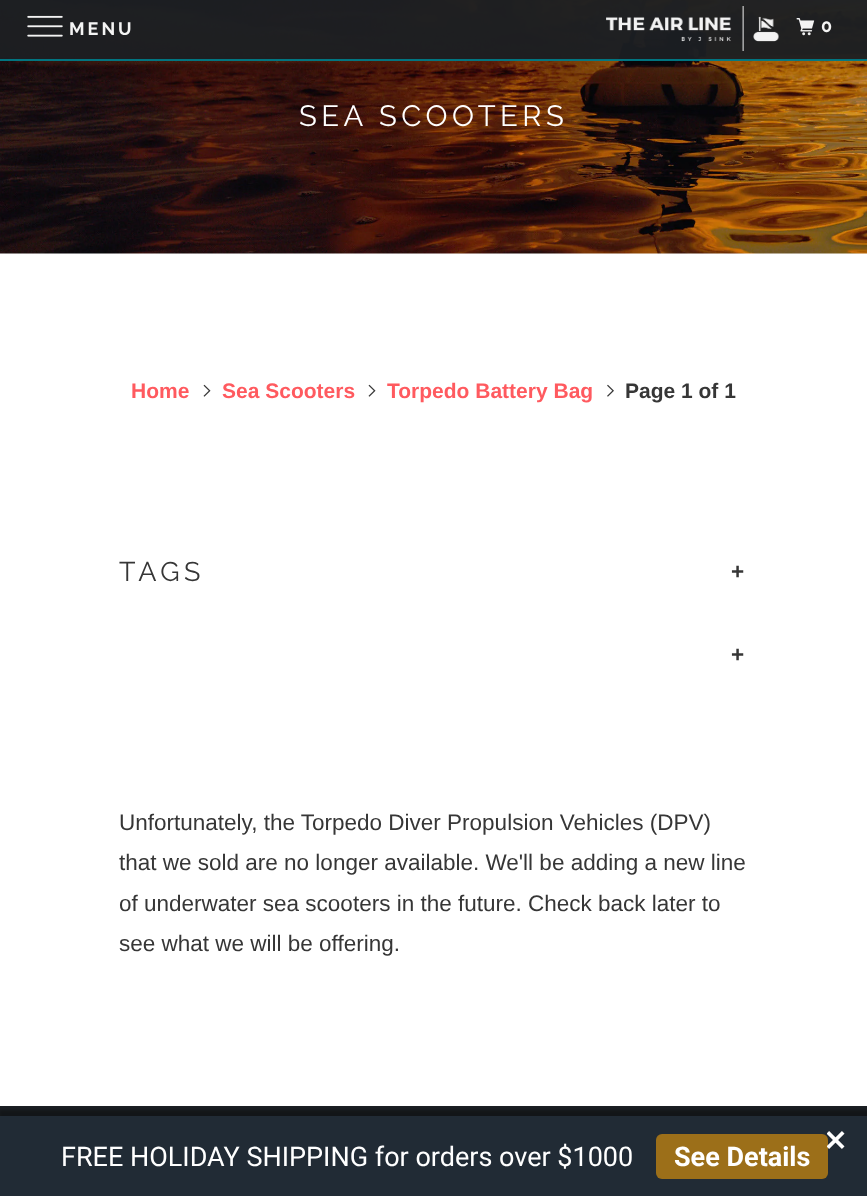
<svg xmlns="http://www.w3.org/2000/svg" width="867" height="1196">
	<rect width="100%" height="100%" fill="#FFFFFF" />
	<image x="0" y="0" width="867" height="254" href="assets/img4.png" />
	<rect x="0" y="0" width="867" height="60" fill="#1B1F23" fill-opacity="0.95" />
	<rect x="0" y="59" width="867" height="2" fill="#007A87" fill-opacity="0.95" />
	<image x="27" y="15" width="36" height="22" href="assets/img1.png" />
	<text x="69" y="35" font-family="Raleway" font-size="18" font-weight="700" letter-spacing="3" fill="#F4F4F4">MENU</text>
	<image x="606" y="6" width="173" height="45" href="assets/img2.png" />
	<image x="796" y="18" width="19" height="18" href="assets/img3.png" />
	<text x="821" y="32" font-family="Raleway" font-size="18" font-weight="700" letter-spacing="3" fill="#F4F4F4">0</text>
	<text x="299" y="126" font-family="Raleway" font-size="29.25" letter-spacing="4.5" fill="#FFFFFF">SEA SCOOTERS</text>
	<text x="131" y="398" font-family="Liberation Sans" font-size="21" font-weight="700" fill="#FF5A5F">Home</text>
	<image x="203" y="384" width="8" height="13" href="assets/img5.png" />
	<text x="222" y="398" font-family="Liberation Sans" font-size="21" font-weight="700" fill="#FF5A5F">Sea Scooters</text>
	<image x="368" y="384" width="8" height="13" href="assets/img5.png" />
	<text x="387" y="398" font-family="Liberation Sans" font-size="21" font-weight="700" fill="#FF5A5F">Torpedo Battery Bag</text>
	<image x="607" y="384" width="7" height="13" href="assets/img6.png" />
	<text x="625" y="398" font-family="Liberation Sans" font-size="21" font-weight="700" fill="#363636">Page 1 of 1</text>
	<text x="119" y="581" font-family="Raleway" font-size="27" letter-spacing="4.5" fill="#363636">TAGS</text>
	<g font-family="Liberation Sans" font-size="22.5" font-weight="700" letter-spacing="4.5" fill="#363636">
		<text x="731" y="579">+</text>
		<text x="731" y="662">+</text>
	</g>
	<g font-family="Liberation Sans" font-size="22.5" fill="#363636">
		<text x="119" y="830">Unfortunately, the Torpedo Diver Propulsion Vehicles (DPV)</text>
		<text x="119" y="870">that we sold are no longer available. We'll be adding a new line</text>
		<text x="119" y="911">of underwater sea scooters in the future. Check back later to</text>
		<text x="119" y="951">see what we will be offering.</text>
	</g>
	<rect x="0" y="1106" width="867" height="10" fill="#1B1F23" />
	<rect x="-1" y="1110" width="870" height="84" fill="#000000" fill-opacity="0.3" filter="blur(1.5px)" />
	<rect x="0" y="1116" width="867" height="80" fill="#212B35" />
	<rect x="656" y="1134" width="172" height="45" rx="6" fill="#9C6F19" />
	<image x="827" y="1131" width="18" height="18" href="assets/img7.png" />
	<text x="61" y="1166" font-family="Roboto" font-size="27" fill="#FFFFFF">FREE HOLIDAY SHIPPING for orders over $1000</text>
	<text x="674" y="1166" font-family="Roboto" font-size="27" font-weight="700" fill="#FFFFFF">See Details</text>
</svg>
